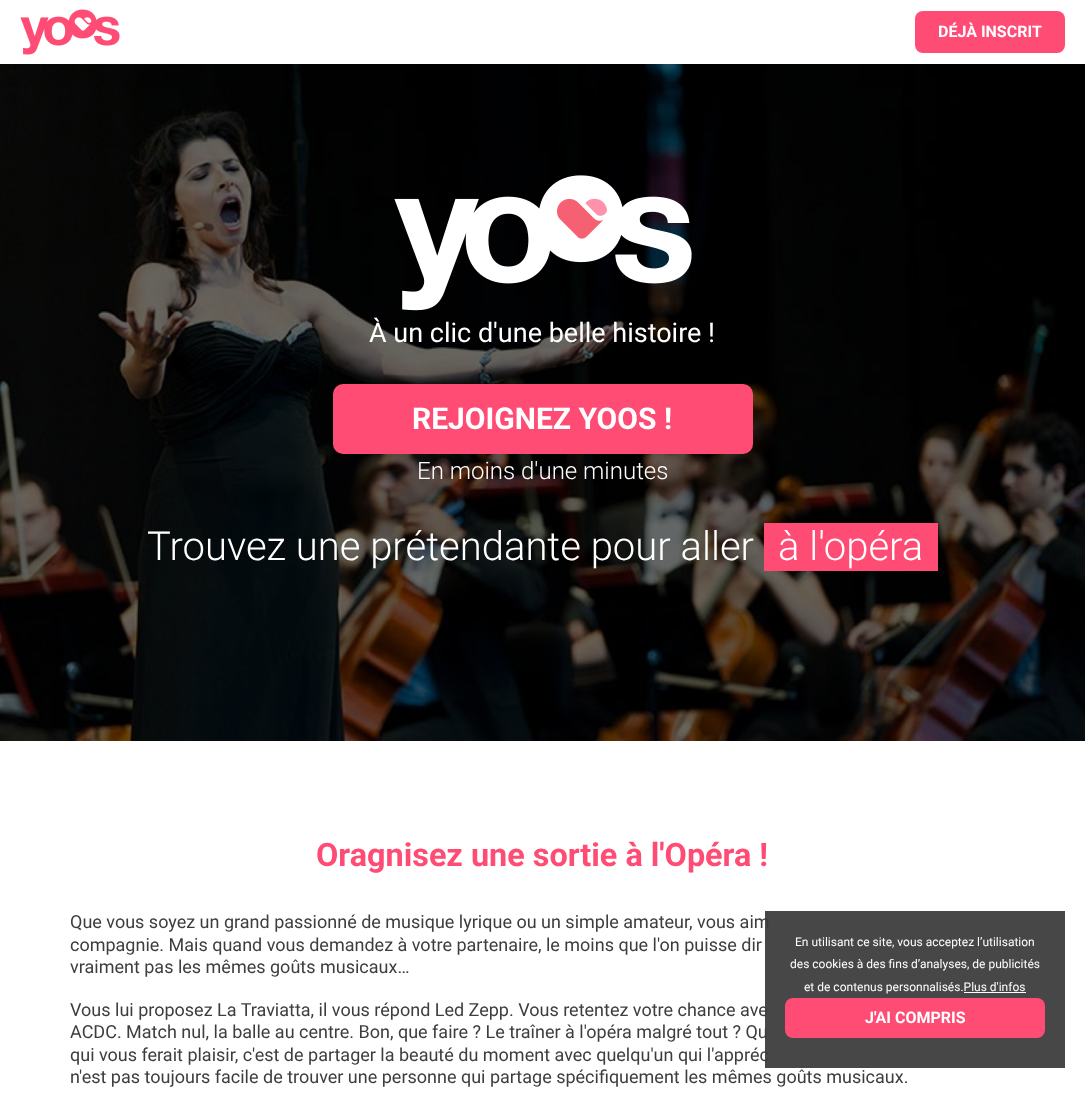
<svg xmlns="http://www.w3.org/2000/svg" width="1085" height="1108">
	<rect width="100%" height="100%" fill="#FFFFFF" />
	<image x="20" y="9" width="100" height="46" href="assets/img1.png" />
	<rect x="915" y="11" width="150" height="42" rx="8" fill="#FF4C74" />
	<text x="938" y="37" font-family="Roboto" font-size="16" font-weight="700" fill="#FFFFFF">DÉJÀ INSCRIT</text>
	<image x="0" y="64" width="1085" height="677" href="assets/img2.png" />
	<image x="394" y="175" width="298" height="136" href="assets/img3.png" />
	<text x="369" y="342" font-family="Roboto" font-size="27" fill="#FFFFFF">À un clic d'une belle histoire !</text>
	<rect x="333" y="384" width="420" height="70" rx="10" fill="#FF4C74" />
	<text x="412" y="429" font-family="Roboto" font-size="30" font-weight="700" fill="#FFFFFF">REJOIGNEZ YOOS !</text>
	<text x="417" y="479" font-family="Roboto" font-size="24" font-weight="300" fill="#FFFFFF">En moins d'une minutes</text>
	<text x="147" y="560" font-family="Roboto" font-size="40" font-weight="300" fill="#FFFFFF">Trouvez une prétendante pour aller</text>
	<rect x="764" y="523" width="174" height="48" fill="#FF4C74" />
	<text x="778" y="560" font-family="Roboto" font-size="40" font-weight="300" fill="#FFFFFF">à l'opéra</text>
	<text x="316" y="866" font-family="Roboto" font-size="32.4" font-weight="700" fill="#FF4C74">Oragnisez une sortie à l'Opéra !</text>
	<g font-family="Roboto" font-size="18" fill="#3D3D3D">
		<text x="70" y="928">Que vous soyez un grand passionné de musique lyrique ou un simple amateur, vous aim</text>
		<text x="70" y="951">compagnie. Mais quand vous demandez à votre partenaire, le moins que l'on puisse dir</text>
		<text x="70" y="973">vraiment pas les mêmes goûts musicaux…</text>
		<text x="70" y="1016">Vous lui proposez La Traviatta, il vous répond Led Zepp. Vous retentez votre chance ave</text>
		<text x="70" y="1038">ACDC. Match nul, la balle au centre. Bon, que faire ? Le traîner à l'opéra malgré tout ? Qu</text>
		<text x="70" y="1061">qui vous ferait plaisir, c'est de partager la beauté du moment avec quelqu'un qui l'appréc</text>
		<text x="70" y="1083">n'est pas toujours facile de trouver une personne qui partage spécifiquement les mêmes goûts musicaux.</text>
	</g>
	<rect x="765" y="911" width="300" height="157" fill="#3D3D3D" fill-opacity="0.95" />
	<g font-family="Roboto" font-size="12" fill="#FFFFFF">
		<text x="795" y="946">En utilisant ce site, vous acceptez l’utilisation</text>
		<text x="790" y="968">des cookies à des fins d’analyses, de publicités</text>
		<text x="804" y="991">et de contenus personnalisés.Plus d'infos</text>
	</g>
	<rect x="964" y="992" width="62" height="1" fill="#FFFFFF" />
	<rect x="785" y="998" width="260" height="40" rx="8" fill="#FF4C74" />
	<text x="865" y="1023" font-family="Roboto" font-size="16" font-weight="700" fill="#FFFFFF">J'AI COMPRIS</text>
</svg>
